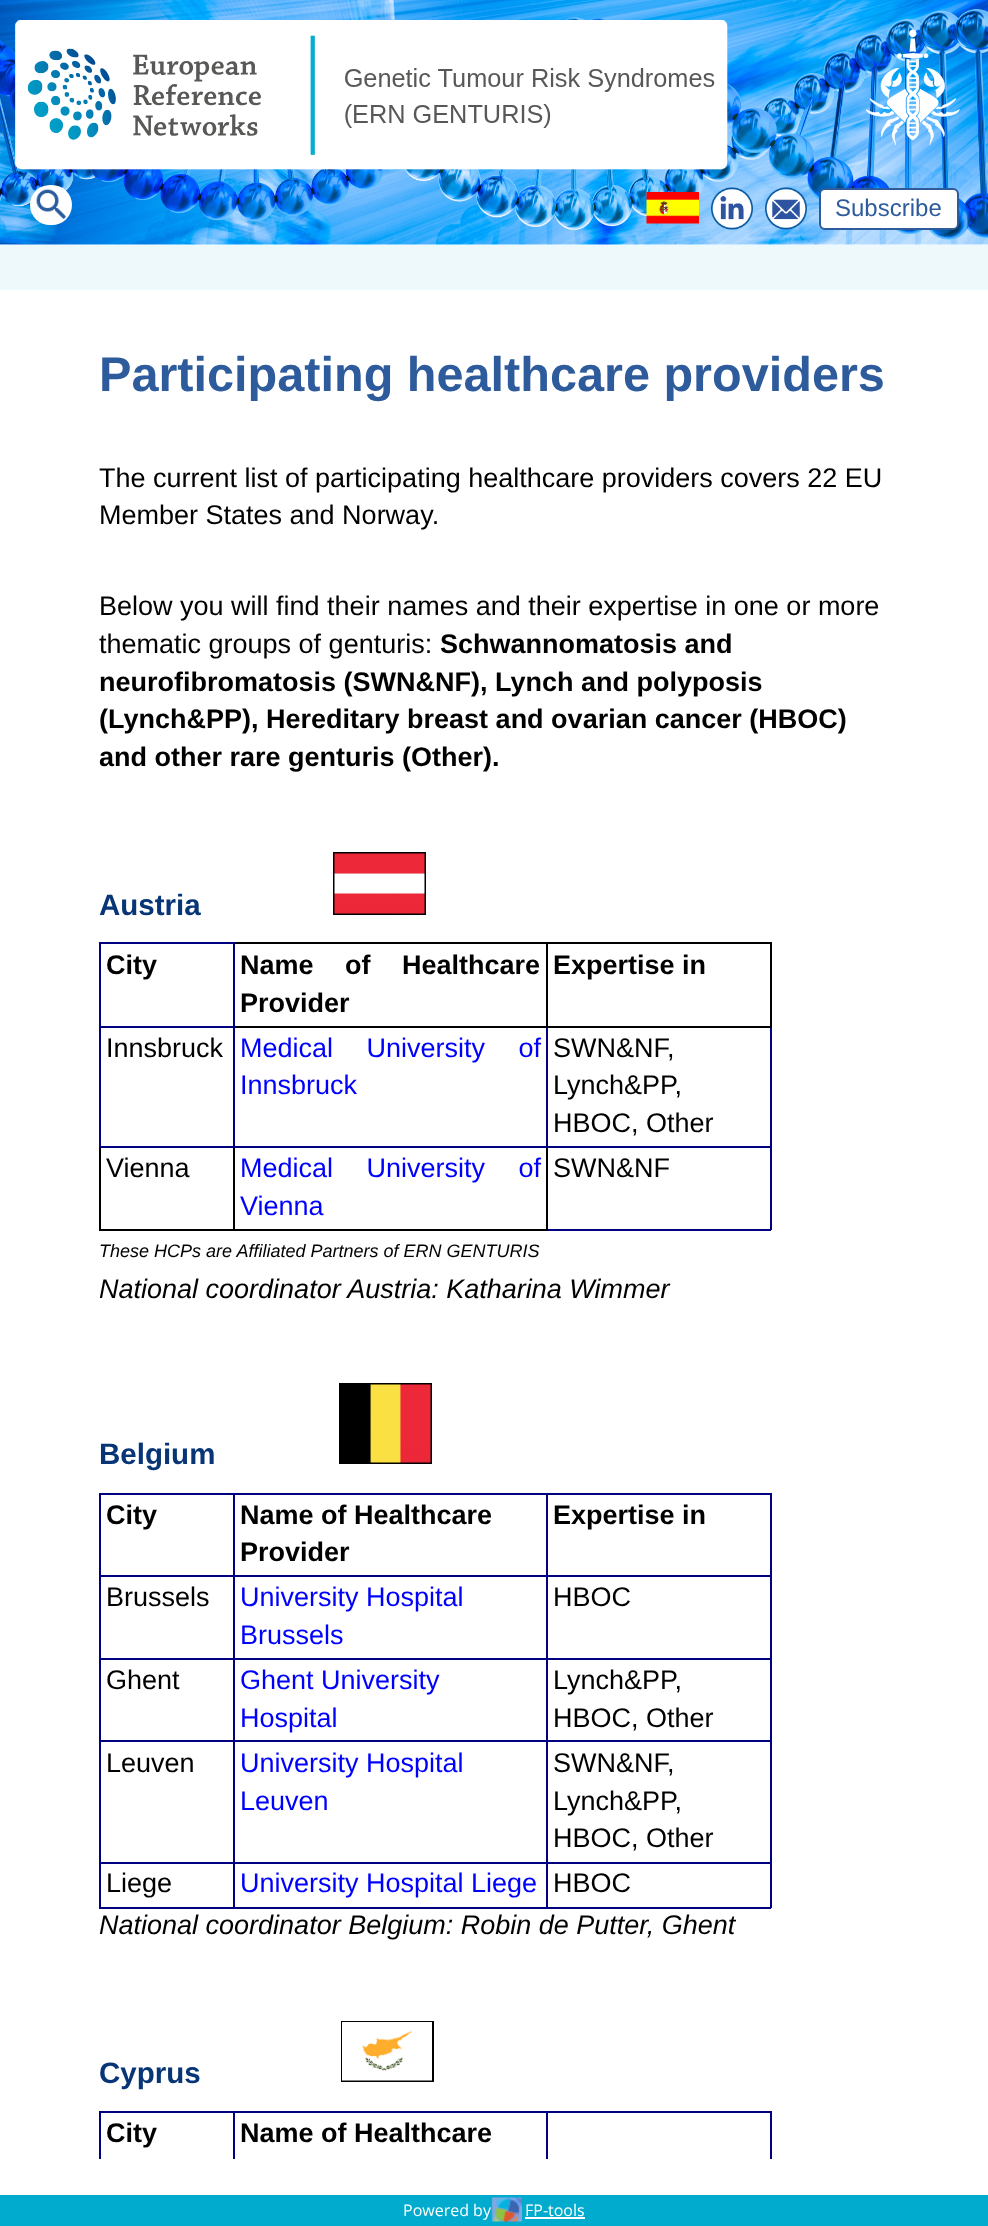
<svg xmlns="http://www.w3.org/2000/svg" width="988" height="2226">
	<rect width="100%" height="100%" fill="#FFFFFF" />
	<image x="0" y="0" width="988" height="245" href="assets/img1.png" />
	<image x="15" y="20" width="713" height="150" href="assets/img2.png" />
	<image x="865" y="29" width="95" height="117" href="assets/img3.png" />
	<rect x="30" y="185" width="42" height="40" rx="20" fill="#FFFFFF" />
	<image x="36" y="189" width="31" height="31" href="assets/img4.png" />
	<image x="646" y="192" width="53" height="32" href="assets/img5.png" />
	<image x="711" y="187" width="42" height="43" href="assets/img6.png" />
	<image x="765" y="187" width="42" height="43" href="assets/img7.png" />
	<rect x="820" y="189" width="138" height="40" rx="5" fill="#FFFFFF" stroke="#2D5B9C" stroke-width="2" />
	<text x="835" y="216" font-family="Liberation Sans" font-size="24" fill="#2D5B9C">Subscribe</text>
	<rect x="0" y="245" width="988" height="45" fill="#EDF9FB" />
	<text x="99" y="391" font-family="Liberation Sans" font-size="48.6" font-weight="700" fill="#2D5B9C">Participating healthcare providers</text>
	<g font-family="Liberation Sans" font-size="27" fill="#000000">
		<text x="99" y="487">The current list of participating healthcare providers covers 22 EU</text>
		<text x="99" y="524">Member States and Norway.</text>
		<text x="99" y="615">Below you will find their names and their expertise in one or more</text>
		<text x="99" y="653">thematic groups of genturis:</text>
	</g>
	<g font-family="Liberation Sans" font-size="27" font-weight="700" fill="#000000">
		<text x="440" y="653">Schwannomatosis and</text>
		<text x="99" y="691">neurofibromatosis (SWN&amp;NF), Lynch and polyposis</text>
		<text x="99" y="728">(Lynch&amp;PP), Hereditary breast and ovarian cancer (HBOC)</text>
		<text x="99" y="766">and other rare genturis (Other).</text>
	</g>
	<rect x="334" y="853" width="91" height="61" fill="none" stroke="#000000" stroke-width="2" />
	<text x="99" y="915" font-family="Liberation Sans" font-size="29.5" font-weight="700" fill="#073576">Austria</text>
	<image x="334" y="853" width="91" height="61" href="assets/img8.png" />
	<rect x="235" y="942" width="536" height="2" fill="#000000" />
	<rect x="99" y="1229" width="134" height="2" fill="#000000" />
	<rect x="99" y="1148" width="2" height="82" fill="#000000" />
	<rect x="99" y="942" width="135" height="2" fill="#000080" />
	<rect x="770" y="1026" width="2" height="204" fill="#000080" />
	<rect x="770" y="942" width="2" height="86" fill="#000000" />
	<rect x="546" y="1229" width="225" height="2" fill="#000080" />
	<rect x="546" y="1146" width="2" height="84" fill="#000000" />
	<rect x="546" y="1146" width="225" height="2" fill="#000080" />
	<rect x="546" y="1026" width="2" height="122" fill="#000080" />
	<rect x="546" y="1026" width="225" height="2" fill="#000000" />
	<rect x="546" y="942" width="2" height="86" fill="#000000" />
	<rect x="233" y="1229" width="315" height="2" fill="#000000" />
	<rect x="233" y="1146" width="2" height="84" fill="#000000" />
	<rect x="233" y="1146" width="315" height="2" fill="#000080" />
	<rect x="233" y="1026" width="2" height="122" fill="#000080" />
	<rect x="99" y="1026" width="135" height="2" fill="#000080" />
	<rect x="233" y="1026" width="315" height="2" fill="#000000" />
	<rect x="233" y="942" width="2" height="86" fill="#000080" />
	<rect x="99" y="1146" width="135" height="2" fill="#000080" />
	<rect x="99" y="1026" width="2" height="122" fill="#000080" />
	<rect x="99" y="942" width="2" height="86" fill="#000080" />
	<g font-family="Liberation Sans" font-size="27" font-weight="700" fill="#000000">
		<text x="106" y="974">City</text>
		<text x="240" y="974" word-spacing="24">Name of Healthcare</text>
		<text x="240" y="1012">Provider</text>
		<text x="553" y="974">Expertise in</text>
	</g>
	<text x="106" y="1057" font-family="Liberation Sans" font-size="27" fill="#000000">Innsbruck</text>
	<g font-family="Liberation Sans" font-size="27" fill="#0000FF">
		<text x="240" y="1057" word-spacing="26">Medical University of</text>
		<text x="240" y="1094">Innsbruck</text>
	</g>
	<g font-family="Liberation Sans" font-size="27" fill="#000000">
		<text x="553" y="1057">SWN&amp;NF,</text>
		<text x="553" y="1094">Lynch&amp;PP,</text>
		<text x="553" y="1132">HBOC, Other</text>
		<text x="106" y="1177">Vienna</text>
	</g>
	<g font-family="Liberation Sans" font-size="27" fill="#0000FF">
		<text x="240" y="1177" word-spacing="26">Medical University of</text>
		<text x="240" y="1215">Vienna</text>
	</g>
	<text x="553" y="1177" font-family="Liberation Sans" font-size="27" fill="#000000">SWN&amp;NF</text>
	<text x="99" y="1257" font-family="Liberation Sans" font-size="18" font-style="italic" fill="#000000">These HCPs are Affiliated Partners of ERN GENTURIS</text>
	<text x="99" y="1298" font-family="Liberation Sans" font-size="27" font-style="italic" fill="#000000">National coordinator Austria: Katharina Wimmer</text>
	<rect x="340" y="1384" width="91" height="79" fill="none" stroke="#000000" stroke-width="2" />
	<text x="99" y="1464" font-family="Liberation Sans" font-size="29.5" font-weight="700" fill="#073576">Belgium</text>
	<image x="341" y="1384" width="90" height="79" href="assets/img9.png" />
	<rect x="546" y="1493" width="225" height="2" fill="#000080" />
	<rect x="546" y="1575" width="225" height="2" fill="#000080" />
	<rect x="546" y="1658" width="225" height="2" fill="#000080" />
	<rect x="546" y="1740" width="225" height="2" fill="#000080" />
	<rect x="546" y="1862" width="225" height="2" fill="#000080" />
	<rect x="770" y="1862" width="2" height="46" fill="#000080" />
	<rect x="546" y="1907" width="225" height="2" fill="#000080" />
	<rect x="546" y="1862" width="2" height="46" fill="#000080" />
	<rect x="233" y="1862" width="315" height="2" fill="#000080" />
	<rect x="546" y="1740" width="2" height="123" fill="#000080" />
	<rect x="233" y="1740" width="315" height="2" fill="#000080" />
	<rect x="546" y="1658" width="2" height="84" fill="#000080" />
	<rect x="233" y="1658" width="315" height="2" fill="#000080" />
	<rect x="546" y="1575" width="2" height="84" fill="#000080" />
	<rect x="233" y="1575" width="315" height="2" fill="#000080" />
	<rect x="546" y="1493" width="2" height="84" fill="#000080" />
	<rect x="233" y="1493" width="315" height="2" fill="#000080" />
	<rect x="233" y="1907" width="315" height="2" fill="#000080" />
	<rect x="233" y="1862" width="2" height="46" fill="#000080" />
	<rect x="99" y="1862" width="135" height="2" fill="#000080" />
	<rect x="233" y="1740" width="2" height="123" fill="#000080" />
	<rect x="99" y="1740" width="135" height="2" fill="#000080" />
	<rect x="233" y="1658" width="2" height="84" fill="#000080" />
	<rect x="99" y="1658" width="135" height="2" fill="#000080" />
	<rect x="233" y="1575" width="2" height="84" fill="#000080" />
	<rect x="99" y="1575" width="135" height="2" fill="#000080" />
	<rect x="233" y="1493" width="2" height="84" fill="#000080" />
	<rect x="99" y="1493" width="135" height="2" fill="#000080" />
	<rect x="99" y="1907" width="135" height="2" fill="#000080" />
	<rect x="99" y="1862" width="2" height="46" fill="#000080" />
	<rect x="99" y="1740" width="2" height="123" fill="#000080" />
	<rect x="99" y="1658" width="2" height="84" fill="#000080" />
	<rect x="99" y="1575" width="2" height="84" fill="#000080" />
	<rect x="99" y="1493" width="2" height="84" fill="#000080" />
	<g font-family="Liberation Sans" font-size="27" font-weight="700" fill="#000000">
		<text x="106" y="1524">City</text>
		<text x="240" y="1524">Name of Healthcare</text>
		<text x="240" y="1561">Provider</text>
	</g>
	<rect x="770" y="1740" width="2" height="123" fill="#000080" />
	<rect x="770" y="1658" width="2" height="84" fill="#000080" />
	<rect x="770" y="1575" width="2" height="84" fill="#000080" />
	<rect x="770" y="1493" width="2" height="84" fill="#000080" />
	<text x="553" y="1524" font-family="Liberation Sans" font-size="27" font-weight="700" fill="#000000">Expertise in</text>
	<text x="106" y="1606" font-family="Liberation Sans" font-size="27" fill="#000000">Brussels</text>
	<g font-family="Liberation Sans" font-size="27" fill="#0000FF">
		<text x="240" y="1606">University Hospital</text>
		<text x="240" y="1644">Brussels</text>
	</g>
	<g font-family="Liberation Sans" font-size="27" fill="#000000">
		<text x="553" y="1606">HBOC</text>
		<text x="106" y="1689">Ghent</text>
	</g>
	<g font-family="Liberation Sans" font-size="27" fill="#0000FF">
		<text x="240" y="1689">Ghent University</text>
		<text x="240" y="1727">Hospital</text>
	</g>
	<g font-family="Liberation Sans" font-size="27" fill="#000000">
		<text x="553" y="1689">Lynch&amp;PP,</text>
		<text x="553" y="1727">HBOC, Other</text>
		<text x="106" y="1772">Leuven</text>
	</g>
	<g font-family="Liberation Sans" font-size="27" fill="#0000FF">
		<text x="240" y="1772">University Hospital</text>
		<text x="240" y="1810">Leuven</text>
	</g>
	<g font-family="Liberation Sans" font-size="27" fill="#000000">
		<text x="553" y="1772">SWN&amp;NF,</text>
		<text x="553" y="1810">Lynch&amp;PP,</text>
		<text x="553" y="1847">HBOC, Other</text>
		<text x="106" y="1892">Liege</text>
	</g>
	<text x="240" y="1892" font-family="Liberation Sans" font-size="27" fill="#0000FF">University Hospital Liege</text>
	<text x="553" y="1892" font-family="Liberation Sans" font-size="27" fill="#000000">HBOC</text>
	<text x="99" y="1934" font-family="Liberation Sans" font-size="27" font-style="italic" fill="#000000">National coordinator Belgium: Robin de Putter, Ghent</text>
	<rect x="342" y="2022" width="91" height="59" fill="none" stroke="#000000" stroke-width="2" />
	<text x="99" y="2083" font-family="Liberation Sans" font-size="29.5" font-weight="700" fill="#073576">Cyprus</text>
	<image x="342" y="2022" width="90" height="59" href="assets/img10.png" />
	<rect x="546" y="2111" width="225" height="2" fill="#000080" />
	<rect x="546" y="2111" width="2" height="48" fill="#000080" />
	<rect x="233" y="2111" width="315" height="2" fill="#000080" />
	<rect x="233" y="2111" width="2" height="48" fill="#000080" />
	<rect x="99" y="2111" width="135" height="2" fill="#000080" />
	<rect x="99" y="2111" width="2" height="48" fill="#000080" />
	<g font-family="Liberation Sans" font-size="27" font-weight="700" fill="#000000">
		<text x="106" y="2142">City</text>
		<text x="240" y="2142">Name of Healthcare</text>
	</g>
	<rect x="770" y="2111" width="2" height="48" fill="#000080" />
	<rect x="0" y="2195" width="988" height="31" fill="#00ABCD" />
	<text x="403" y="2216" font-family="Open Sans" font-size="16" fill="#FFFFFF">Powered by</text>
	<image x="491" y="2197" width="31" height="25" href="assets/img11.png" />
	<text x="525" y="2216" font-family="Open Sans" font-size="16" fill="#FFFFFF">FP-tools</text>
	<rect x="525" y="2217" width="60" height="2" fill="#FFFFFF" />
</svg>
